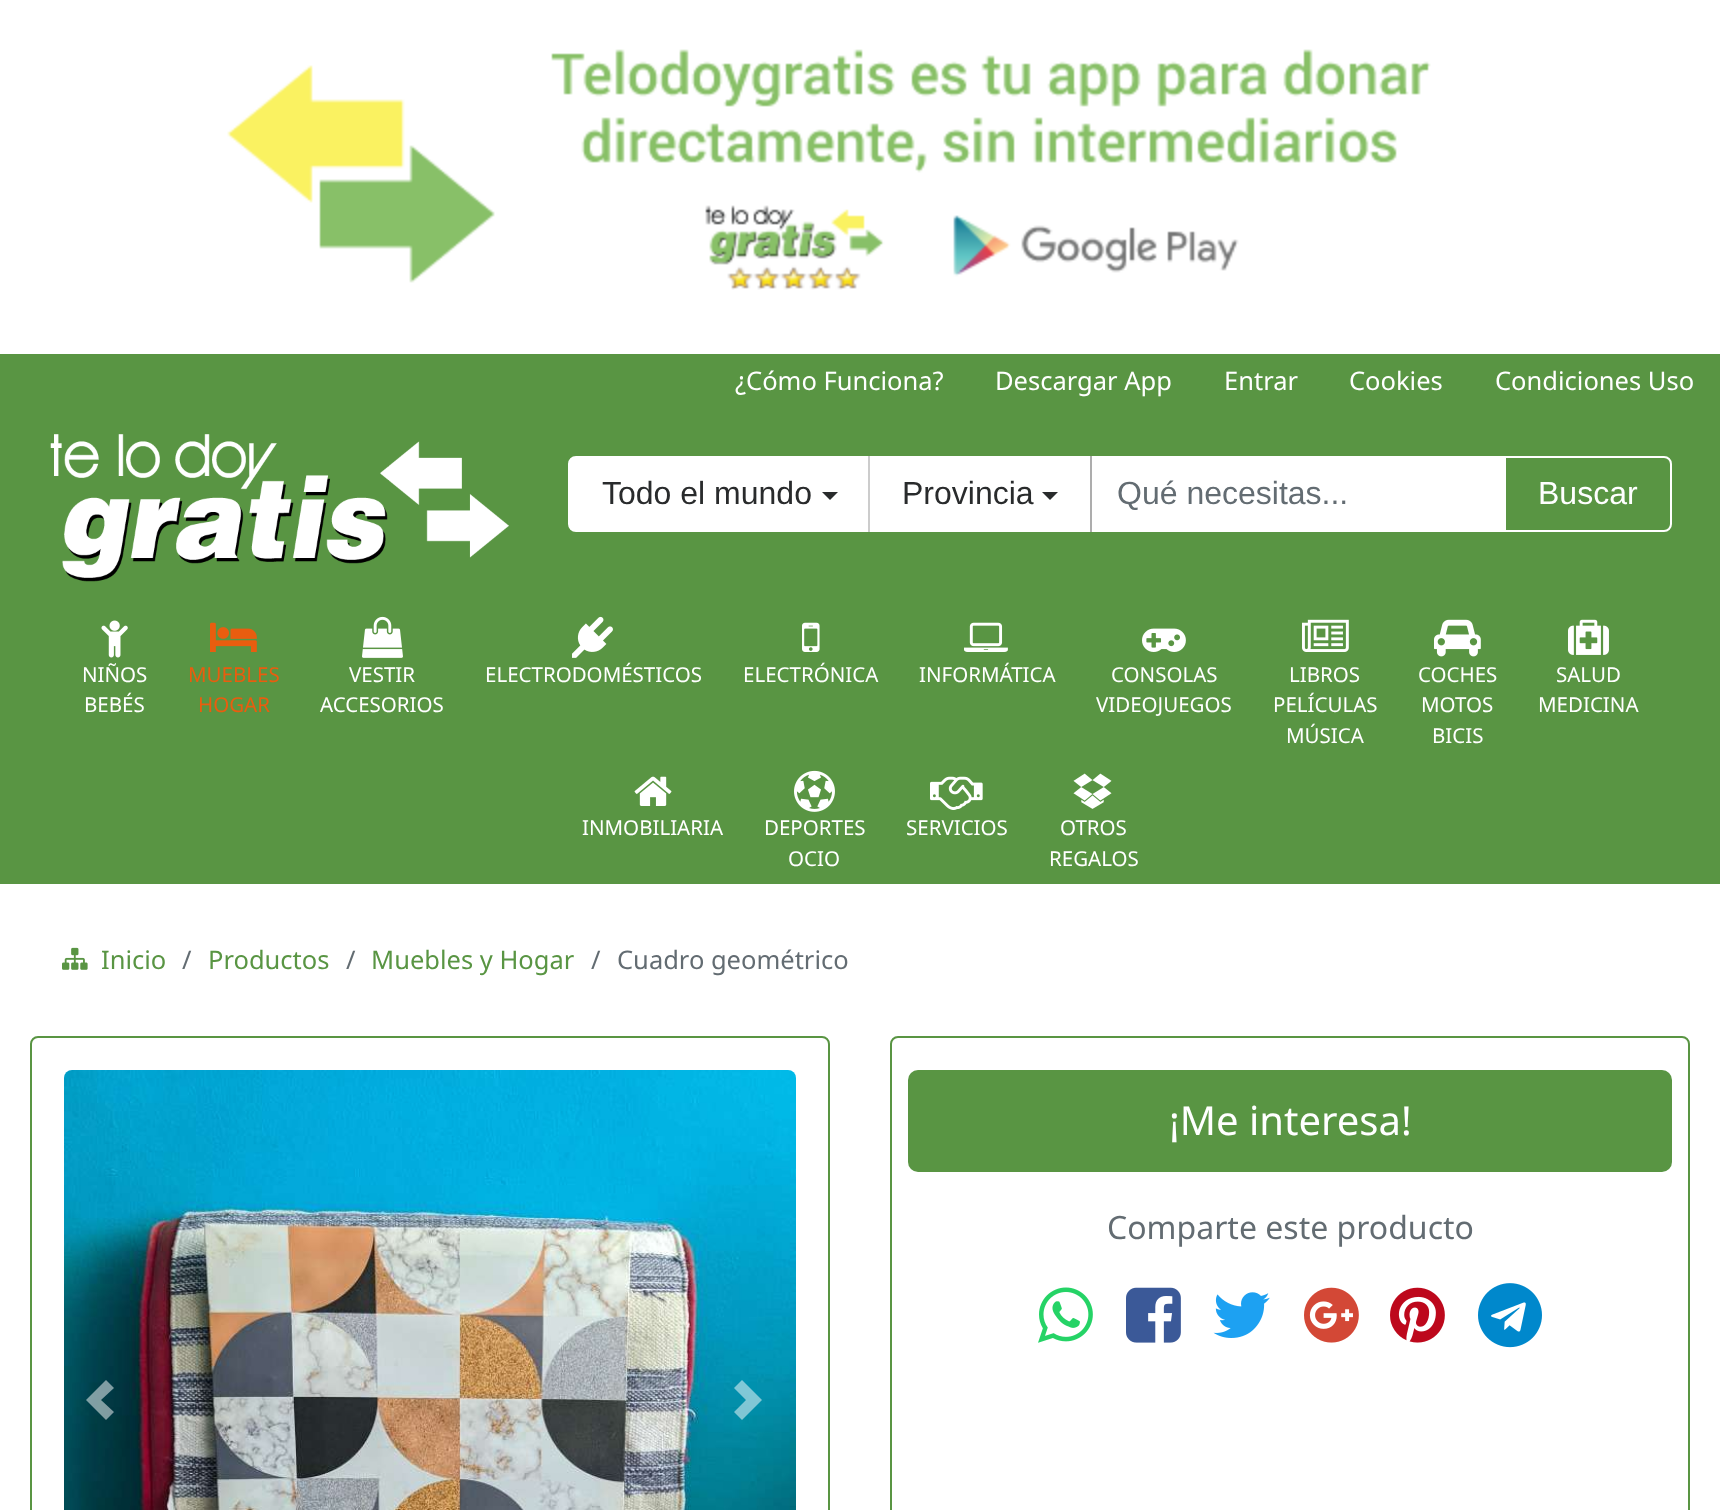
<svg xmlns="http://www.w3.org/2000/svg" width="1720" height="1510">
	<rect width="100%" height="100%" fill="#FFFFFF" />
	<image x="227" y="49" width="1204" height="241" href="assets/img1.png" />
	<rect x="0" y="354" width="1720" height="530" fill="#599543" />
	<g font-family="Noto Sans" font-size="25.5" fill="#FFFFFF">
		<text x="735" y="390">¿Cómo Funciona?</text>
		<text x="995" y="390">Descargar App</text>
		<text x="1224" y="390">Entrar</text>
		<text x="1349" y="390">Cookies</text>
		<text x="1495" y="390">Condiciones Uso</text>
	</g>
	<image x="50" y="434" width="459" height="148" href="assets/img2.png" />
	<path d="M576 457H871V531H576C572 531 569 528 569 524V464C569 460 572 457 576 457Z" fill="#FFFFFF" stroke="#FFFFFF" stroke-width="2" />
	<text x="602" y="504" font-family="Liberation Sans" font-size="32" fill="#292B2C">Todo el mundo</text>
	<path d="M822 492H838L830 500Z" fill="#292B2C" />
	<rect x="872" y="456" width="218" height="76" fill="#FFFFFF" />
	<rect x="868" y="456" width="2" height="76" fill="#CCCCCC" />
	<text x="902" y="504" font-family="Liberation Sans" font-size="32" fill="#292B2C">Provincia</text>
	<path d="M1042 492H1058L1050 500Z" fill="#292B2C" />
	<rect x="1092" y="456" width="412" height="76" fill="#FFFFFF" />
	<rect x="1090" y="456" width="2" height="76" fill="#ADADAD" />
	<text x="1117" y="504" font-family="Liberation Sans" font-size="32" fill="#636C72">Qué necesitas...</text>
	<path d="M1505 457H1664C1668 457 1671 460 1671 464V524C1671 528 1668 531 1664 531H1505Z" fill="none" stroke="#FFFFFF" stroke-width="2" />
	<text x="1538" y="504" font-family="Liberation Sans" font-size="32" fill="#FFFFFF">Buscar</text>
	<image x="101" y="620" width="27" height="38" href="assets/img3.png" />
	<g font-family="Noto Sans" font-size="20.5" fill="#FFFFFF">
		<text x="82" y="682">NIÑOS</text>
		<text x="84" y="712">BEBÉS</text>
	</g>
	<image x="210" y="622" width="47" height="30" href="assets/img4.png" />
	<g font-family="Noto Sans" font-size="20.5" fill="#E95D0F">
		<text x="188" y="682">MUEBLES</text>
		<text x="198" y="712">HOGAR</text>
	</g>
	<image x="362" y="616" width="41" height="42" href="assets/img5.png" />
	<g font-family="Noto Sans" font-size="20.5" fill="#FFFFFF">
		<text x="349" y="682">VESTIR</text>
		<text x="320" y="712">ACCESORIOS</text>
	</g>
	<image x="572" y="616" width="41" height="42" href="assets/img6.png" />
	<text x="485" y="682" font-family="Noto Sans" font-size="20.5" fill="#FFFFFF">ELECTRODOMÉSTICOS</text>
	<image x="802" y="622" width="18" height="30" href="assets/img7.png" />
	<text x="743" y="682" font-family="Noto Sans" font-size="20.5" fill="#FFFFFF">ELECTRÓNICA</text>
	<image x="964" y="622" width="44" height="30" href="assets/img8.png" />
	<text x="919" y="682" font-family="Noto Sans" font-size="20.5" fill="#FFFFFF">INFORMÁTICA</text>
	<image x="1142" y="628" width="44" height="24" href="assets/img9.png" />
	<g font-family="Noto Sans" font-size="20.5" fill="#FFFFFF">
		<text x="1111" y="682">CONSOLAS</text>
		<text x="1096" y="712">VIDEOJUEGOS</text>
	</g>
	<image x="1302" y="619" width="47" height="33" href="assets/img10.png" />
	<g font-family="Noto Sans" font-size="20.5" fill="#FFFFFF">
		<text x="1289" y="682">LIBROS</text>
		<text x="1273" y="712">PELÍCULAS</text>
		<text x="1286" y="743">MÚSICA</text>
	</g>
	<image x="1434" y="619" width="47" height="38" href="assets/img11.png" />
	<g font-family="Noto Sans" font-size="20.5" fill="#FFFFFF">
		<text x="1418" y="682">COCHES</text>
		<text x="1421" y="712">MOTOS</text>
		<text x="1432" y="743">BICIS</text>
	</g>
	<image x="1568" y="619" width="41" height="36" href="assets/img12.png" />
	<g font-family="Noto Sans" font-size="20.5" fill="#FFFFFF">
		<text x="1556" y="682">SALUD</text>
		<text x="1538" y="712">MEDICINA</text>
	</g>
	<image x="634" y="776" width="38" height="30" href="assets/img13.png" />
	<text x="582" y="835" font-family="Noto Sans" font-size="20.5" fill="#FFFFFF">INMOBILIARIA</text>
	<image x="794" y="770" width="41" height="42" href="assets/img14.png" />
	<g font-family="Noto Sans" font-size="20.5" fill="#FFFFFF">
		<text x="764" y="835">DEPORTES</text>
		<text x="788" y="866">OCIO</text>
	</g>
	<image x="930" y="776" width="53" height="34" href="assets/img15.png" />
	<text x="906" y="835" font-family="Noto Sans" font-size="20.5" fill="#FFFFFF">SERVICIOS</text>
	<image x="1073" y="773" width="39" height="36" href="assets/img16.png" />
	<g font-family="Noto Sans" font-size="20.5" fill="#FFFFFF">
		<text x="1060" y="835">OTROS</text>
		<text x="1049" y="866">REGALOS</text>
	</g>
	<image x="62" y="947" width="26" height="23" href="assets/img17.png" />
	<text x="101" y="969" font-family="Noto Sans" font-size="25.5" fill="#599543">Inicio</text>
	<text x="182" y="969" font-family="Noto Sans" font-size="25.5" fill="#636C72">/</text>
	<text x="208" y="969" font-family="Noto Sans" font-size="25.5" fill="#599543">Productos</text>
	<text x="346" y="969" font-family="Noto Sans" font-size="25.5" fill="#636C72">/</text>
	<text x="371" y="969" font-family="Noto Sans" font-size="25.5" fill="#599543">Muebles y Hogar</text>
	<g font-family="Noto Sans" font-size="25.5" fill="#636C72">
		<text x="591" y="969">/</text>
		<text x="617" y="969">Cuadro geométrico</text>
	</g>
	<rect x="31" y="1037" width="798" height="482" rx="7" fill="none" stroke="#599543" stroke-width="2" />
	<image x="64" y="1070" width="732" height="440" href="assets/img18.png" />
	<path d="M106 1380L86 1400L106 1420L114 1412L101 1400L114 1388Z" fill="#FFFFFF" fill-opacity="0.5" />
	<path d="M742 1380L734 1388L746 1400L734 1412L742 1420L762 1400Z" fill="#FFFFFF" fill-opacity="0.5" />
	<rect x="891" y="1037" width="798" height="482" rx="7" fill="none" stroke="#599543" stroke-width="2" />
	<rect x="908" y="1070" width="764" height="102" rx="10" fill="#599543" />
	<text x="1169" y="1135" font-family="Noto Sans" font-size="40" fill="#FFFFFF">¡Me interesa!</text>
	<text x="1107" y="1239" font-family="Noto Sans" font-size="32" fill="#636C72">Comparte este producto</text>
	<image x="1038" y="1287" width="55" height="56" href="assets/img19.png" />
	<image x="1126" y="1287" width="55" height="56" href="assets/img20.png" />
	<image x="1213" y="1292" width="57" height="46" href="assets/img21.png" />
	<image x="1304" y="1287" width="55" height="56" href="assets/img22.png" />
	<image x="1390" y="1287" width="55" height="56" href="assets/img23.png" />
	<image x="1478" y="1283" width="64" height="65" href="assets/img24.png" />
</svg>
